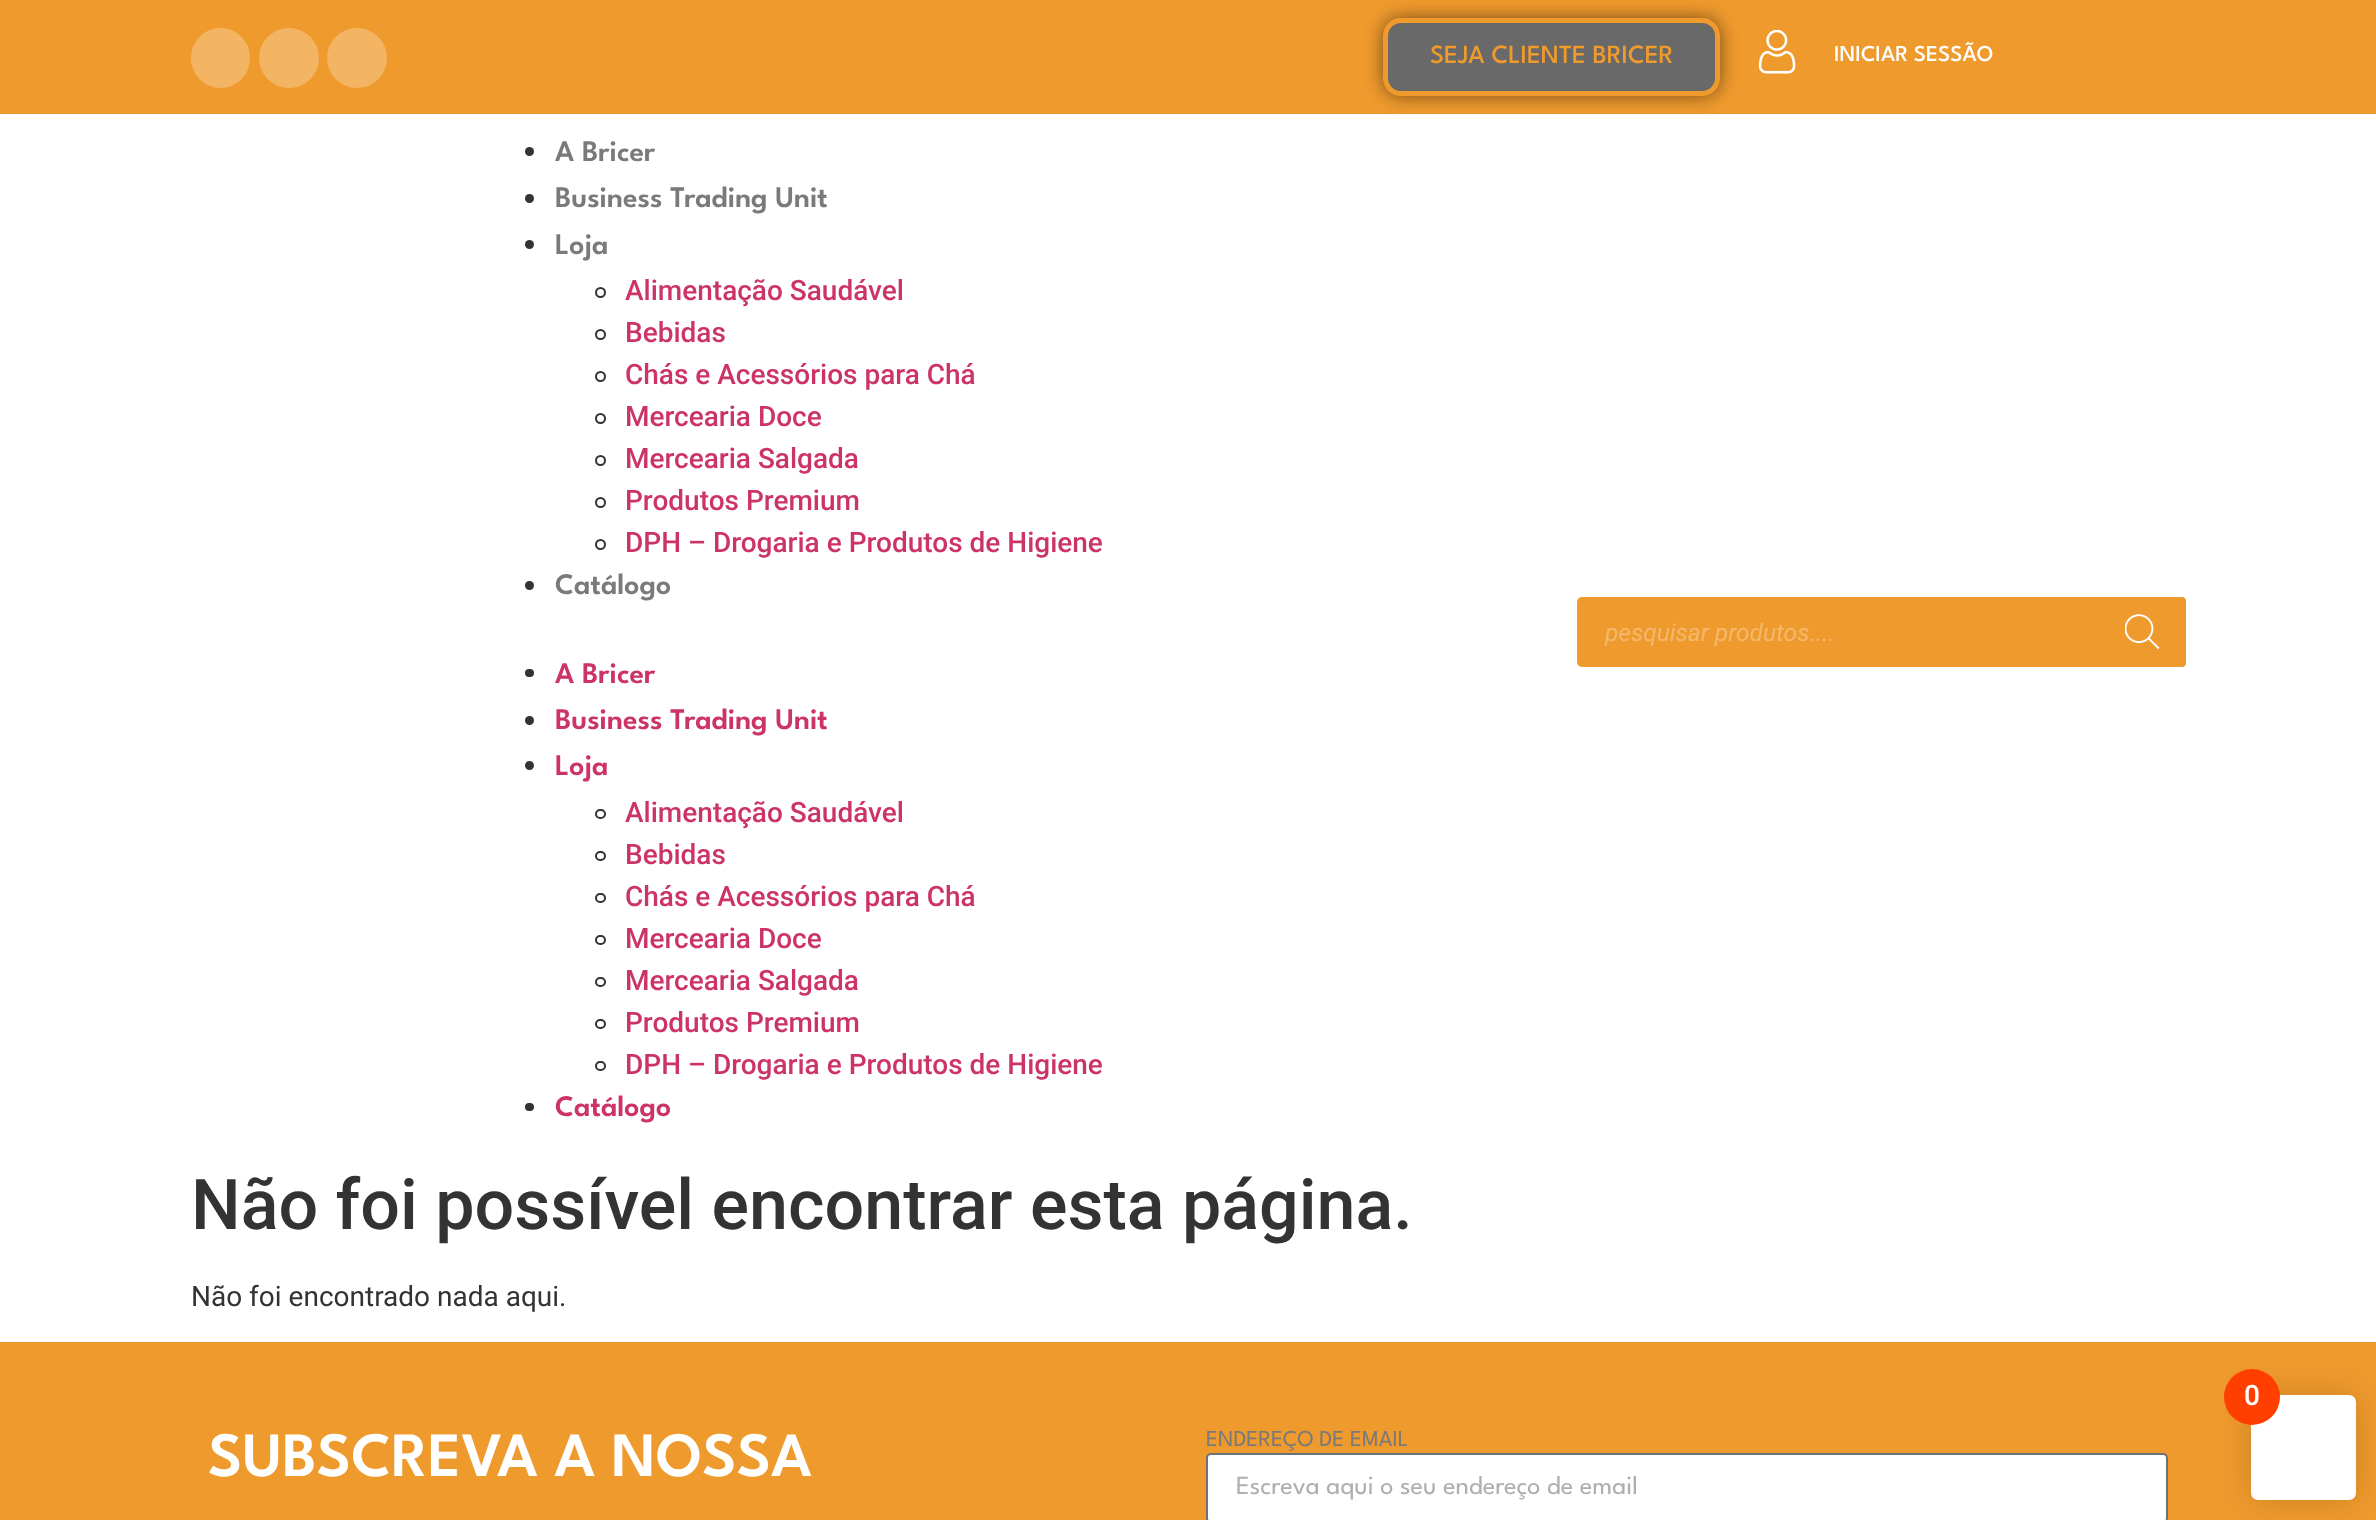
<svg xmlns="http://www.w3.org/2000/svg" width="2376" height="1520">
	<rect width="100%" height="100%" fill="#FFFFFF" />
	<rect x="0" y="0" width="2376" height="114" fill="#EF9A2D" />
	<rect x="191" y="28" width="59" height="60" rx="29.5" fill="#F3B464" />
	<circle cx="289" cy="58" r="30" fill="#F3B464" />
	<circle cx="357" cy="58" r="30" fill="#F3B464" />
	<rect x="1383" y="18" width="337" height="78" rx="18" fill="#000000" fill-opacity="0.5" filter="blur(9px)" />
	<rect x="1385.5" y="20.5" width="332" height="73" rx="15.5" fill="#696969" stroke="#EF9A2D" stroke-width="5" />
	<text x="1430" y="63" font-family="League Spartan" font-size="26.25" font-weight="500" fill="#EF9A2D">SEJA CLIENTE BRICER</text>
	<image x="1758" y="30" width="38" height="44" href="assets/img1.png" />
	<text x="1834" y="61" font-family="League Spartan" font-size="22.75" font-weight="500" fill="#FFFFFF">INICIAR SESSÃO</text>
	<circle cx="529.5" cy="151.5" r="4.5" fill="#333333" />
	<text x="555" y="161" font-family="League Spartan" font-size="29.75" font-weight="600" fill="#7A7A7A">A Bricer</text>
	<circle cx="529.5" cy="198.5" r="4.5" fill="#333333" />
	<text x="555" y="207" font-family="League Spartan" font-size="29.75" font-weight="600" fill="#7A7A7A">Business Trading Unit</text>
	<circle cx="529.5" cy="244.5" r="4.5" fill="#333333" />
	<text x="555" y="254" font-family="League Spartan" font-size="29.75" font-weight="600" fill="#7A7A7A">Loja</text>
	<circle cx="600.5" cy="292.5" r="4.5" fill="none" stroke="#333333" stroke-width="2" />
	<text x="625" y="300" font-family="Roboto" font-size="28" font-weight="500" fill="#CC3366">Alimentação Saudável</text>
	<circle cx="600.5" cy="334.5" r="4.5" fill="none" stroke="#333333" stroke-width="2" />
	<text x="625" y="342" font-family="Roboto" font-size="28" font-weight="500" fill="#CC3366">Bebidas</text>
	<circle cx="600.5" cy="376.5" r="4.5" fill="none" stroke="#333333" stroke-width="2" />
	<text x="625" y="384" font-family="Roboto" font-size="28" font-weight="500" fill="#CC3366">Chás e Acessórios para Chá</text>
	<circle cx="600.5" cy="418.5" r="4.5" fill="none" stroke="#333333" stroke-width="2" />
	<text x="625" y="426" font-family="Roboto" font-size="28" font-weight="500" fill="#CC3366">Mercearia Doce</text>
	<circle cx="600.5" cy="460.5" r="4.5" fill="none" stroke="#333333" stroke-width="2" />
	<text x="625" y="468" font-family="Roboto" font-size="28" font-weight="500" fill="#CC3366">Mercearia Salgada</text>
	<circle cx="600.5" cy="502.5" r="4.5" fill="none" stroke="#333333" stroke-width="2" />
	<text x="625" y="510" font-family="Roboto" font-size="28" font-weight="500" fill="#CC3366">Produtos Premium</text>
	<circle cx="600.5" cy="544.5" r="4.5" fill="none" stroke="#333333" stroke-width="2" />
	<text x="625" y="552" font-family="Roboto" font-size="28" font-weight="500" fill="#CC3366">DPH – Drogaria e Produtos de Higiene</text>
	<circle cx="529.5" cy="585.5" r="4.5" fill="#333333" />
	<text x="555" y="594" font-family="League Spartan" font-size="29.75" font-weight="600" fill="#7A7A7A">Catálogo</text>
	<rect x="525" y="669" width="9" height="8" rx="4" fill="#333333" />
	<text x="555" y="683" font-family="League Spartan" font-size="29.75" font-weight="600" fill="#CC3366">A Bricer</text>
	<circle cx="529.5" cy="720.5" r="4.5" fill="#333333" />
	<text x="555" y="729" font-family="League Spartan" font-size="29.75" font-weight="600" fill="#CC3366">Business Trading Unit</text>
	<circle cx="529.5" cy="765.5" r="4.5" fill="#333333" />
	<text x="555" y="775" font-family="League Spartan" font-size="29.75" font-weight="600" fill="#CC3366">Loja</text>
	<rect x="596" y="810" width="9" height="8" rx="4" fill="none" stroke="#333333" stroke-width="2" />
	<text x="625" y="822" font-family="Roboto" font-size="28" font-weight="500" fill="#CC3366">Alimentação Saudável</text>
	<rect x="596" y="852" width="9" height="8" rx="4" fill="none" stroke="#333333" stroke-width="2" />
	<text x="625" y="864" font-family="Roboto" font-size="28" font-weight="500" fill="#CC3366">Bebidas</text>
	<rect x="596" y="894" width="9" height="8" rx="4" fill="none" stroke="#333333" stroke-width="2" />
	<text x="625" y="906" font-family="Roboto" font-size="28" font-weight="500" fill="#CC3366">Chás e Acessórios para Chá</text>
	<rect x="596" y="936" width="9" height="8" rx="4" fill="none" stroke="#333333" stroke-width="2" />
	<text x="625" y="948" font-family="Roboto" font-size="28" font-weight="500" fill="#CC3366">Mercearia Doce</text>
	<rect x="596" y="978" width="9" height="8" rx="4" fill="none" stroke="#333333" stroke-width="2" />
	<text x="625" y="990" font-family="Roboto" font-size="28" font-weight="500" fill="#CC3366">Mercearia Salgada</text>
	<rect x="596" y="1020" width="9" height="8" rx="4" fill="none" stroke="#333333" stroke-width="2" />
	<text x="625" y="1032" font-family="Roboto" font-size="28" font-weight="500" fill="#CC3366">Produtos Premium</text>
	<rect x="596" y="1062" width="9" height="8" rx="4" fill="none" stroke="#333333" stroke-width="2" />
	<text x="625" y="1074" font-family="Roboto" font-size="28" font-weight="500" fill="#CC3366">DPH – Drogaria e Produtos de Higiene</text>
	<rect x="525" y="1103" width="9" height="8" rx="4" fill="#333333" />
	<text x="555" y="1116" font-family="League Spartan" font-size="29.75" font-weight="600" fill="#CC3366">Catálogo</text>
	<rect x="1578" y="598" width="607" height="68" rx="4" fill="#EF9A2D" stroke="#EF9A2D" stroke-width="2" />
	<text x="1605" y="641" font-family="Roboto" font-size="24.5" font-style="italic" fill="#F4B86C">pesquisar produtos....</text>
	<path d="M2098 597H2182C2184 597 2186 599 2186 601V663C2186 665 2184 667 2182 667H2098Z" fill="#EF9A2D" />
	<image x="2125" y="614" width="35" height="36" href="assets/img2.png" />
	<text x="191" y="1229" font-family="Roboto" font-size="70" font-weight="500" fill="#333333">Não foi possível encontrar esta página.</text>
	<text x="191" y="1306" font-family="Roboto" font-size="28" fill="#333333">Não foi encontrado nada aqui.</text>
	<rect x="0" y="1342" width="2376" height="178" fill="#EF9A2D" />
	<rect x="2251" y="1395" width="105" height="105" rx="7" fill="#000000" fill-opacity="0.15" filter="blur(17.5px)" />
	<rect x="2251" y="1395" width="105" height="105" rx="7" fill="#FFFFFF" />
	<circle cx="2252" cy="1397" r="28" fill="#FF3F00" />
	<text x="2244" y="1405" font-family="Roboto" font-size="28" font-weight="500" fill="#FFFFFF">0</text>
	<text x="208" y="1476" font-family="League Spartan" font-size="63" font-weight="600" fill="#FFFFFF">SUBSCREVA A NOSSA</text>
	<text x="1206" y="1446" font-family="League Spartan" font-size="22.75" fill="#7A7A7A">ENDEREÇO DE EMAIL</text>
	<rect x="1207" y="1454" width="960" height="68" rx="4" fill="#FFFFFF" stroke="#69727D" stroke-width="2" />
	<text x="1236" y="1494" font-family="League Spartan" font-size="26.25" fill="#AFAFAF">Escreva aqui o seu endereço de email</text>
</svg>
